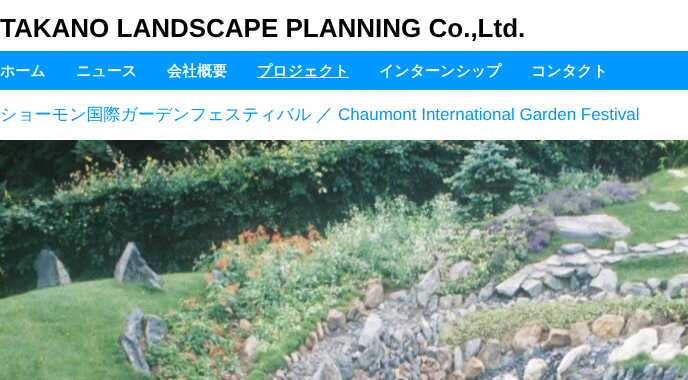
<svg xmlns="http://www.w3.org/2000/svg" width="688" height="380">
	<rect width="100%" height="100%" fill="#FFFFFF" />
	<text x="0" y="37" font-family="Liberation Sans" font-size="26" font-weight="700" fill="#000000">TAKANO LANDSCAPE PLANNING Co.,Ltd.</text>
	<rect x="0" y="51" width="688" height="39" fill="#0099FF" />
	<g font-family="WenQuanYi Zen Hei" font-size="15" font-weight="700" fill="#FFFFFF">
		<text x="0" y="76">ホーム</text>
		<text x="76" y="76">ニュース</text>
		<text x="167" y="76">会社概要</text>
	</g>
	<rect x="257" y="77" width="92" height="1" fill="#FFFFFF" />
	<g font-family="WenQuanYi Zen Hei" font-size="15" font-weight="700" fill="#FFFFFF">
		<text x="257" y="76">プロジェクト</text>
		<text x="379" y="76">インターンシップ</text>
		<text x="531" y="76">コンタクト</text>
	</g>
	<g font-family="WenQuanYi Zen Hei" font-size="17" font-weight="500" fill="#0099FF">
		<text x="0" y="120">ショーモン国際ガーデンフェスティバル</text>
		<text x="316" y="120">／</text>
	</g>
	<text x="338" y="120" font-family="Liberation Sans" font-size="17" fill="#0099FF">Chaumont International Garden Festival</text>
	<image x="0" y="140" width="688" height="240" href="assets/img1.png" />
</svg>
